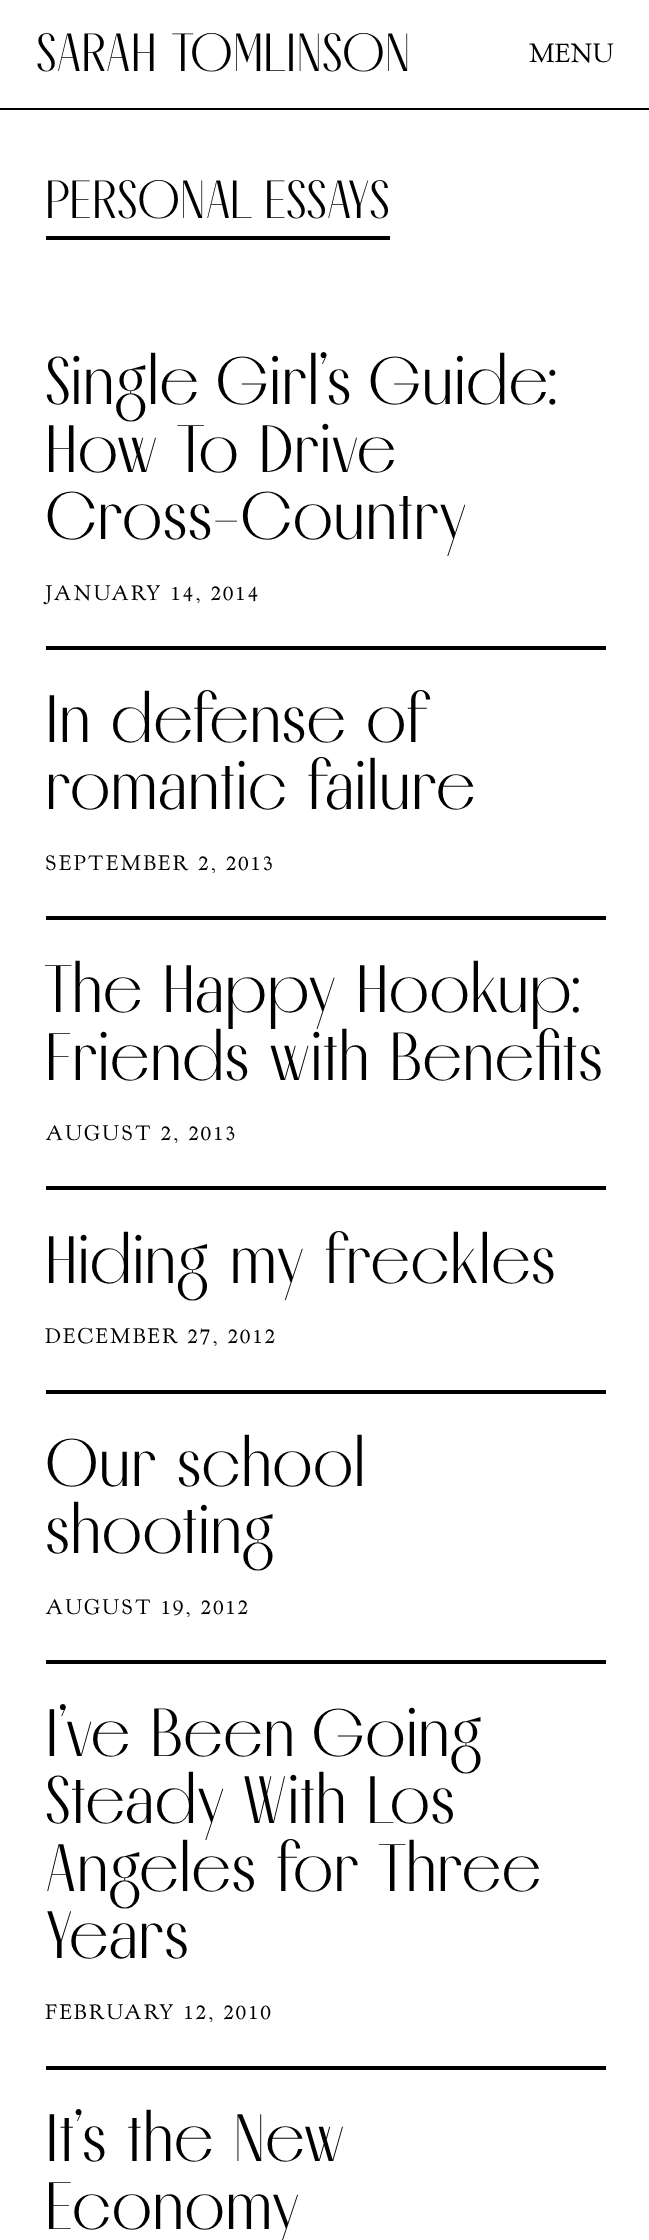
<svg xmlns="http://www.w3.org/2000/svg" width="649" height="2240">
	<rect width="100%" height="100%" fill="#FFFFFF" />
	<rect x="0" y="108" width="649" height="2" fill="#000000" />
	<text x="36" y="71" font-family="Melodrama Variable" font-size="54" fill="#000000">SARAH TOMLINSON</text>
	<text x="529" y="62" font-family="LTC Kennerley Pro" font-size="27" fill="#000000">MENU</text>
	<rect x="46" y="236" width="344" height="4" fill="#000000" />
	<text x="45" y="218" font-family="Melodrama Variable" font-size="54" fill="#000000">PERSONAL ESSAYS</text>
	<rect x="46" y="646" width="560" height="4" fill="#000000" />
	<g font-family="Melodrama Variable" font-size="67.5" fill="#000000">
		<text x="45" y="404">Single Girl’s Guide:</text>
		<text x="45" y="472">How To Drive</text>
		<text x="45" y="539">Cross-Country</text>
	</g>
	<text x="45" y="600" font-family="LTC Kennerley Pro" font-size="21.6" letter-spacing="2.2" fill="#000000">JANUARY 14, 2014</text>
	<rect x="46" y="916" width="560" height="4" fill="#000000" />
	<g font-family="Melodrama Variable" font-size="67.5" fill="#000000">
		<text x="45" y="742">In defense of</text>
		<text x="45" y="809">romantic failure</text>
	</g>
	<text x="45" y="870" font-family="LTC Kennerley Pro" font-size="21.6" letter-spacing="2.2" fill="#000000">SEPTEMBER 2, 2013</text>
	<rect x="46" y="1186" width="560" height="4" fill="#000000" />
	<g font-family="Melodrama Variable" font-size="67.5" fill="#000000">
		<text x="45" y="1012">The Happy Hookup:</text>
		<text x="45" y="1080">Friends with Benefits</text>
	</g>
	<text x="45" y="1140" font-family="LTC Kennerley Pro" font-size="21.6" letter-spacing="2.2" fill="#000000">AUGUST 2, 2013</text>
	<rect x="46" y="1390" width="560" height="4" fill="#000000" />
	<text x="45" y="1283" font-family="Melodrama Variable" font-size="67.5" fill="#000000">Hiding my freckles</text>
	<text x="45" y="1343" font-family="LTC Kennerley Pro" font-size="21.6" letter-spacing="2.2" fill="#000000">DECEMBER 27, 2012</text>
	<rect x="46" y="1660" width="560" height="4" fill="#000000" />
	<g font-family="Melodrama Variable" font-size="67.5" fill="#000000">
		<text x="45" y="1486">Our school</text>
		<text x="45" y="1553">shooting</text>
	</g>
	<text x="45" y="1614" font-family="LTC Kennerley Pro" font-size="21.6" letter-spacing="2.2" fill="#000000">AUGUST 19, 2012</text>
	<rect x="46" y="2066" width="560" height="4" fill="#000000" />
	<g font-family="Melodrama Variable" font-size="67.5" fill="#000000">
		<text x="45" y="1756">I’ve Been Going</text>
		<text x="45" y="1823">Steady With Los</text>
		<text x="45" y="1891">Angeles for Three</text>
		<text x="45" y="1958">Years</text>
	</g>
	<text x="45" y="2019" font-family="LTC Kennerley Pro" font-size="21.6" letter-spacing="2.2" fill="#000000">FEBRUARY 12, 2010</text>
	<g font-family="Melodrama Variable" font-size="67.5" fill="#000000">
		<text x="45" y="2161">It’s the New</text>
		<text x="45" y="2229">Economy</text>
	</g>
</svg>
